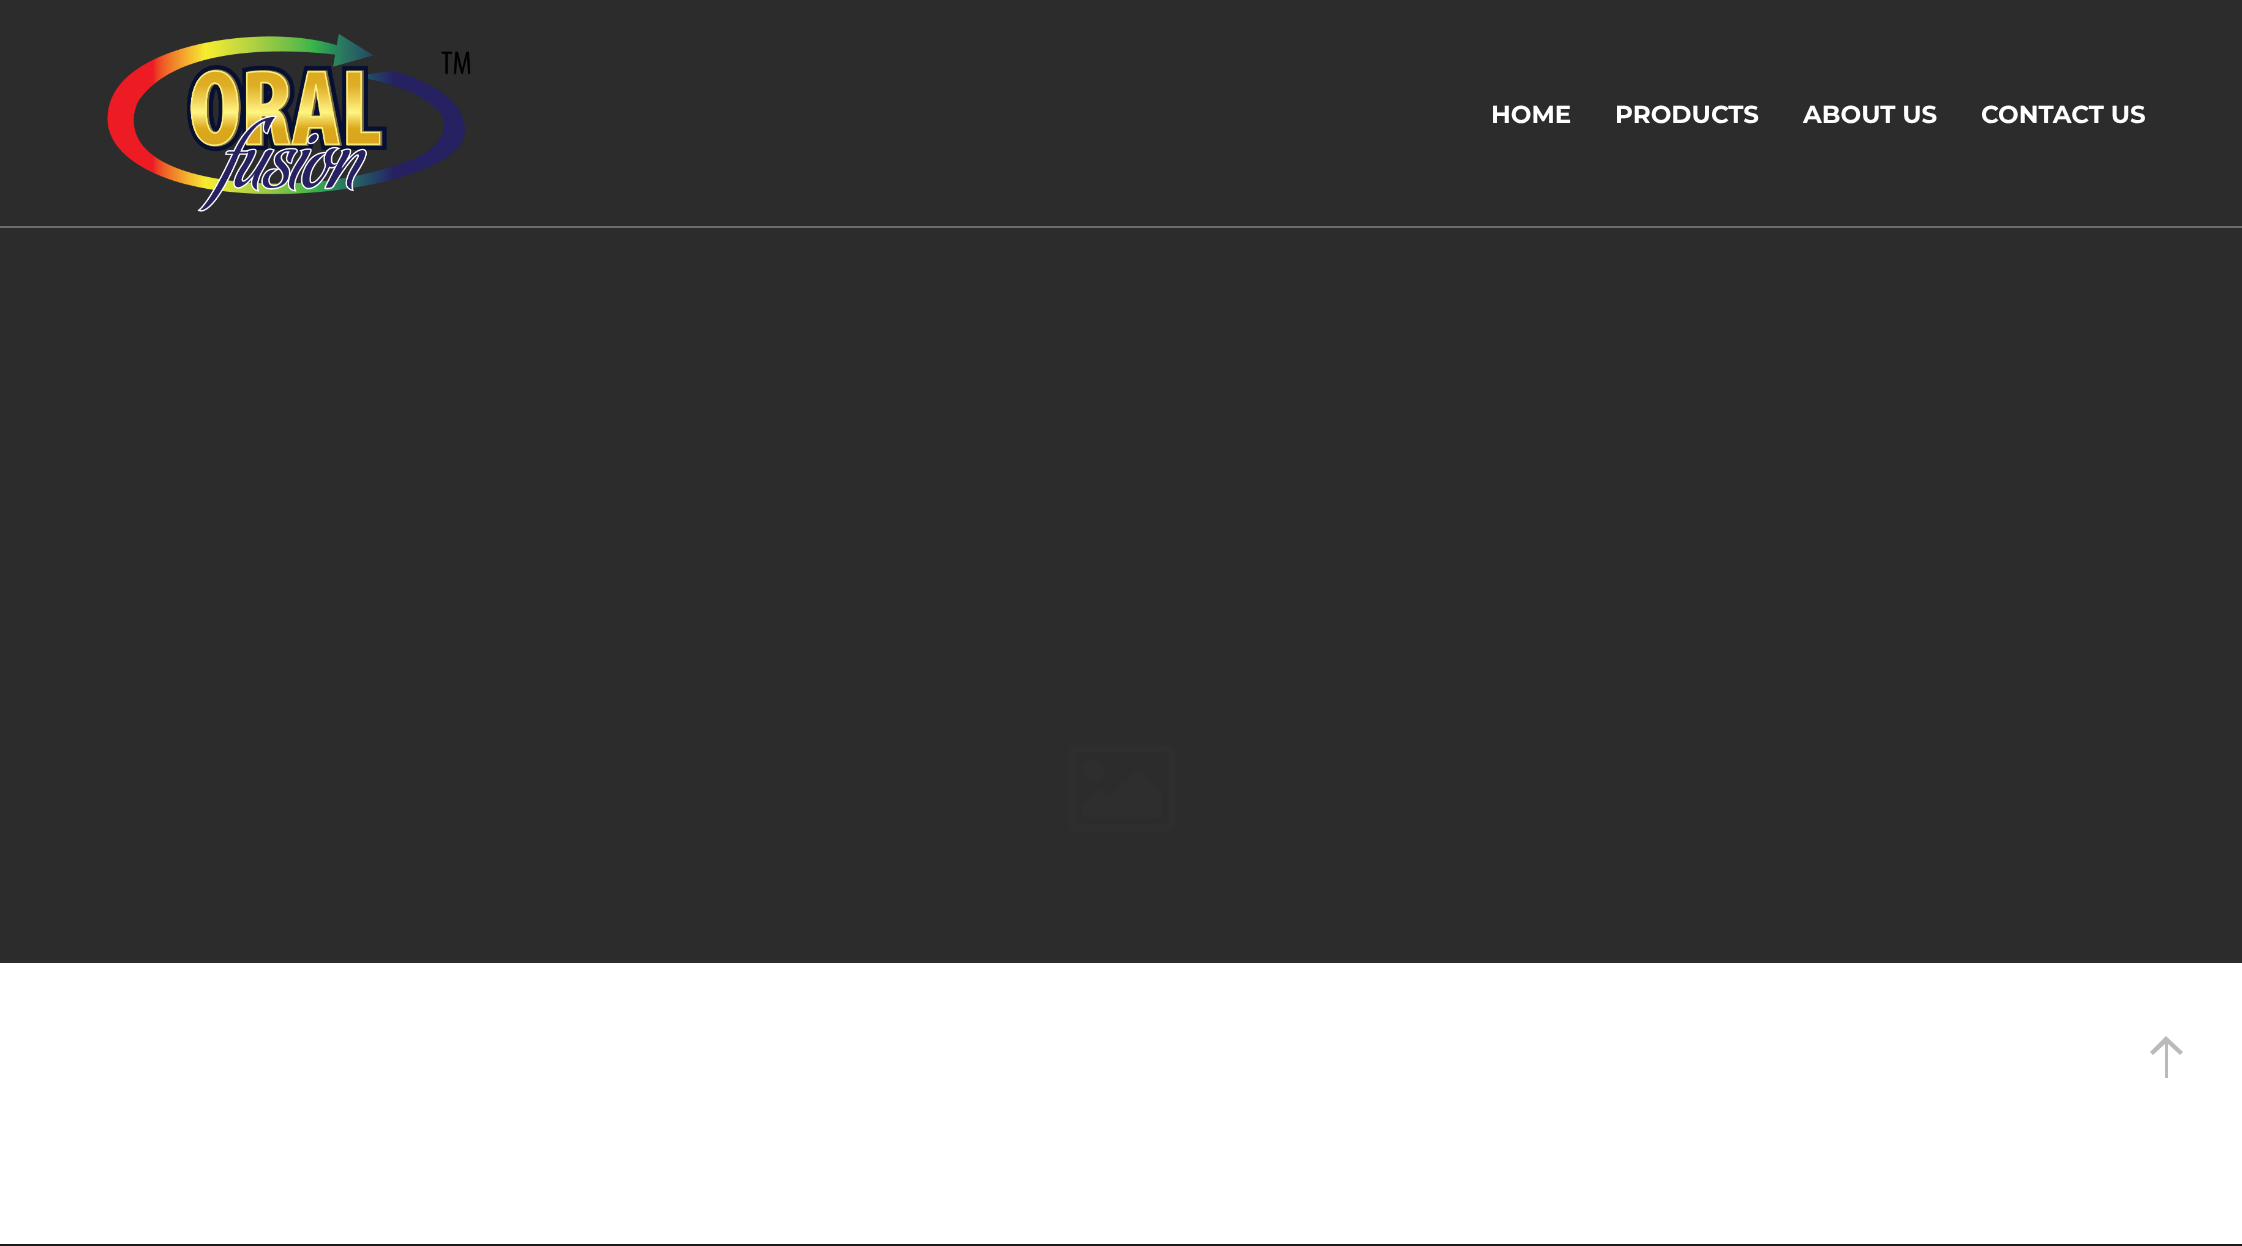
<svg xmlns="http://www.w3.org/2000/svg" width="2242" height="1246">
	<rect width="100%" height="100%" fill="#FFFFFF" />
	<image x="0" y="0" width="2242" height="963" href="assets/img1.png" />
	<rect x="0" y="226" width="2242" height="2" fill="#6B6B6B" />
	<image x="107" y="34" width="364" height="178" href="assets/img2.png" />
	<g font-family="Montserrat" font-size="24.5" font-weight="100" fill="#FFFFFF">
		<text x="1491" y="123">HOME</text>
		<text x="1615" y="123">PRODUCTS</text>
		<text x="1803" y="123">ABOUT US</text>
		<text x="1981" y="123">CONTACT US</text>
	</g>
	<path d="M2168 1078V1044L2180 1055L2183 1052L2166 1036L2150 1052L2153 1055L2165 1044V1078Z" fill="#BABABA" />
	<rect x="0" y="1244" width="2242" height="2" fill="#1A1A1A" />
</svg>
